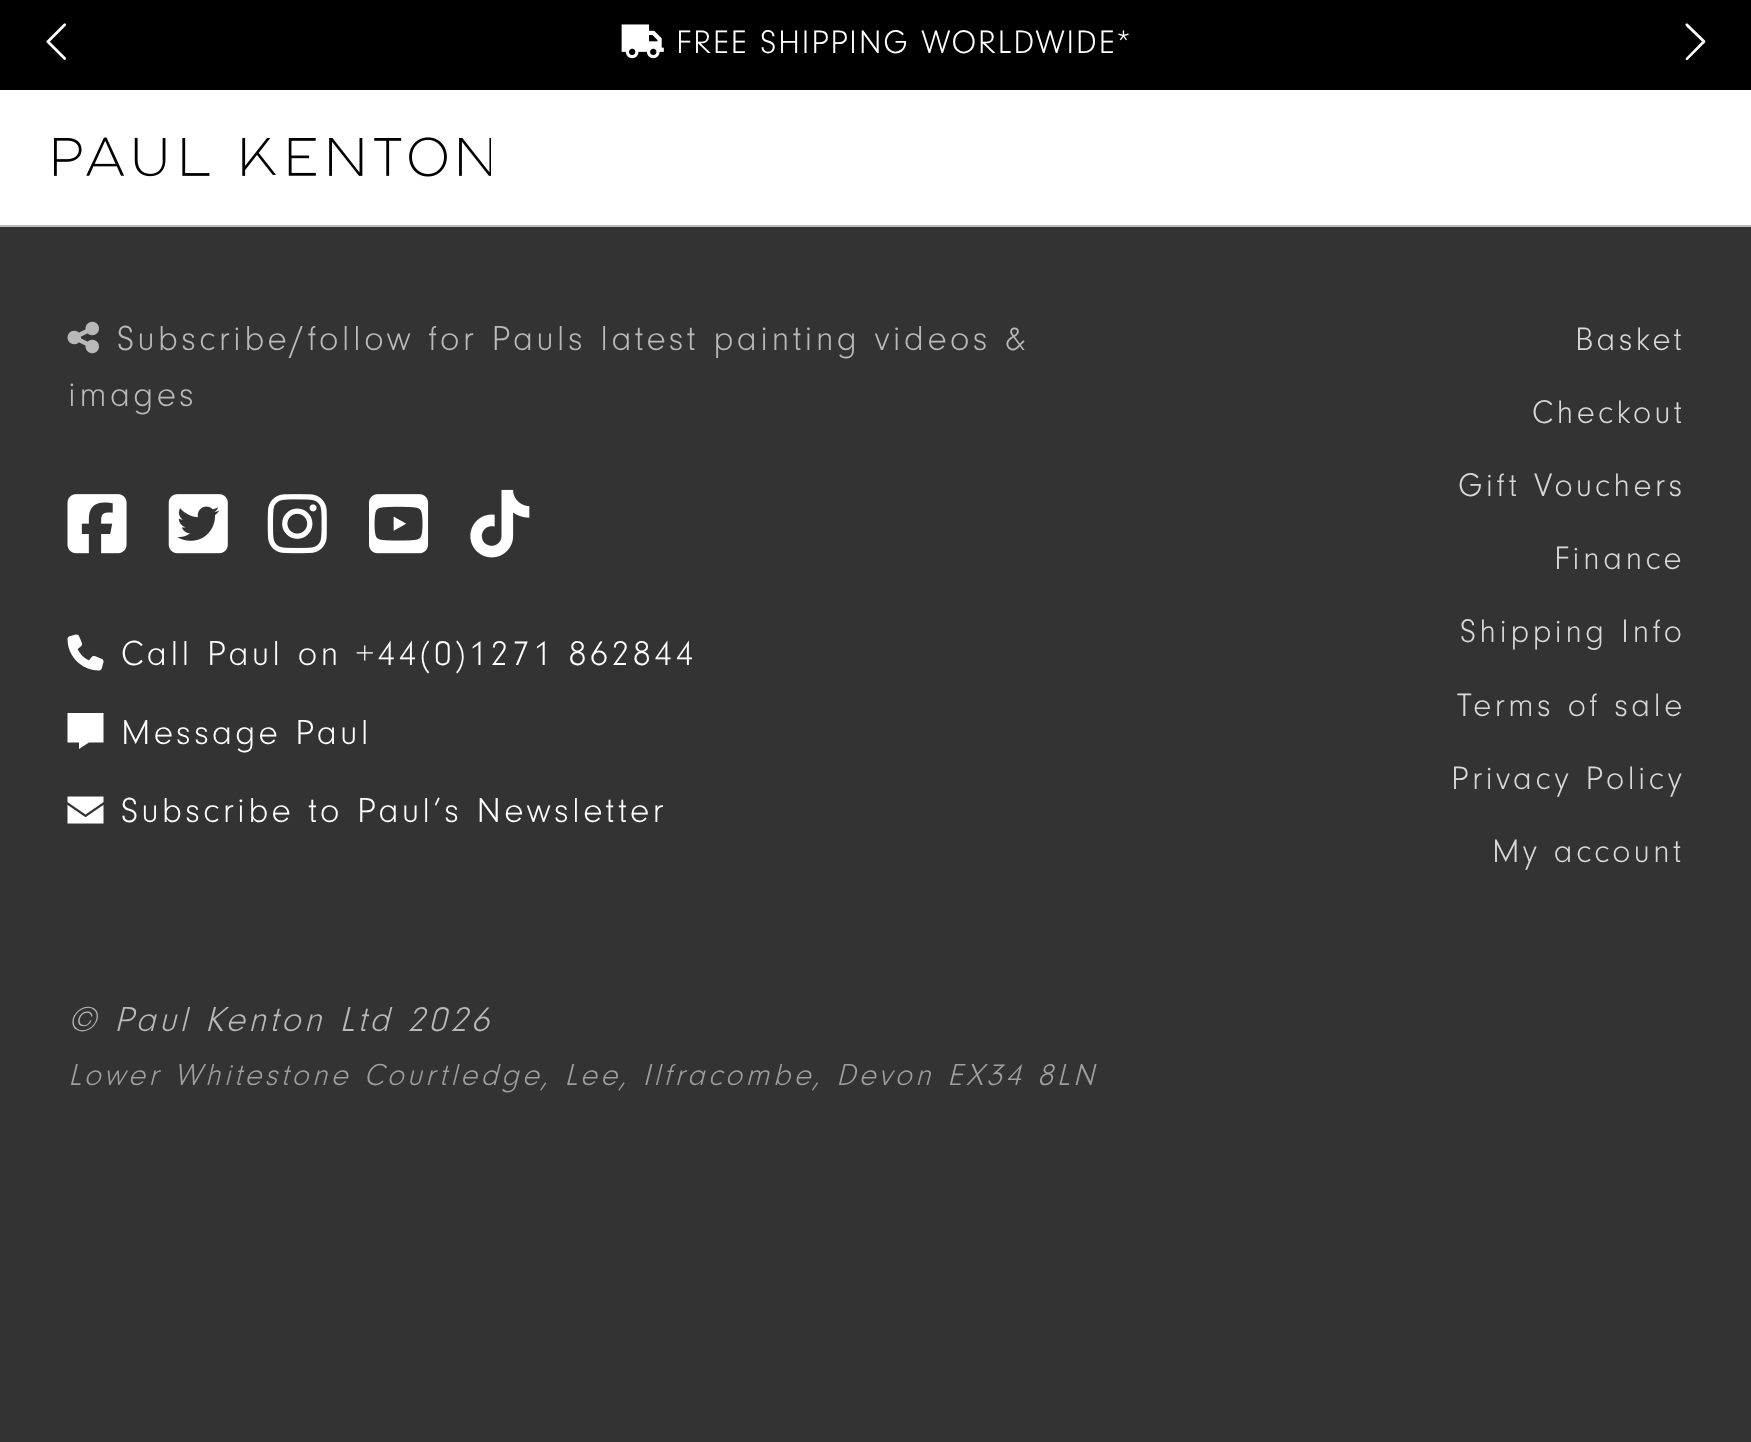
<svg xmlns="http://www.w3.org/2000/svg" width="1751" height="1442">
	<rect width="100%" height="100%" fill="#333333" />
	<rect x="0" y="90" width="1751" height="135" fill="#FFFFFF" />
	<rect x="0" y="225" width="1751" height="2" fill="#B9B9B9" />
	<rect x="0" y="0" width="1751" height="90" fill="#000000" />
	<image x="46" y="23" width="21" height="37" href="assets/img1.png" />
	<image x="621" y="24" width="43" height="35" href="assets/img2.png" />
	<text x="676" y="53" font-family="'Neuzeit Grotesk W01'" font-size="33.75" letter-spacing="1.7" fill="#FFFFFF">FREE SHIPPING WORLDWIDE*</text>
	<path d="M1705 40.5C1706.5 42.5 1702.5 44.5 1702 45.5L1687.5 60C1686 60.5 1685 59 1686 58L1702 41.5L1688.5 28.5C1688 28 1684 25 1686 23.5H1687.5Z" fill="#FFFFFF" />
	<image x="54" y="137" width="437" height="40" href="assets/img3.png" />
	<image x="67" y="321" width="32" height="33" href="assets/img4.png" />
	<g font-family="'Neuzeit Grotesk W01'" font-size="36" letter-spacing="3.38" fill="#B9B9B9">
		<text x="117" y="350">Subscribe/follow for Pauls latest painting videos &amp;</text>
		<text x="68" y="406">images</text>
	</g>
	<image x="67" y="494" width="60" height="60" href="assets/img5.png" />
	<image x="168" y="494" width="60" height="60" href="assets/img6.png" />
	<image x="267" y="494" width="60" height="60" href="assets/img7.png" />
	<image x="369" y="494" width="60" height="60" href="assets/img8.png" />
	<image x="470" y="489" width="60" height="69" href="assets/img9.png" />
	<image x="67" y="634" width="37" height="37" href="assets/img10.png" />
	<text x="121" y="665" font-family="'Neuzeit Grotesk W01'" font-size="36" letter-spacing="3.38" fill="#FFFFFF">Call Paul on +44(0)1271 862844</text>
	<path d="M103.5 713H67.5H103.5H67.5V742.5H79V749L89 742.5H103.5Z" fill="#FFFFFF" />
	<text x="121" y="744" font-family="'Neuzeit Grotesk W01'" font-size="36" letter-spacing="3.38" fill="#FFFFFF">Message Paul</text>
	<image x="67" y="796" width="37" height="28" href="assets/img11.png" />
	<text x="121" y="822" font-family="'Neuzeit Grotesk W01'" font-size="36" letter-spacing="3.38" fill="#FFFFFF">Subscribe to Paul’s Newsletter</text>
	<g font-family="'Neuzeit Grotesk W01'" font-size="33.75" letter-spacing="3.38" fill="#D8D8D8">
		<text x="1575" y="350">Basket</text>
		<text x="1532" y="423">Checkout</text>
		<text x="1458" y="496">Gift Vouchers</text>
		<text x="1554" y="569">Finance</text>
		<text x="1460" y="642">Shipping Info</text>
		<text x="1457" y="716">Terms of sale</text>
		<text x="1451" y="789">Privacy Policy</text>
		<text x="1492" y="862">My account</text>
	</g>
	<text x="68" y="1031" font-family="'Neuzeit Grotesk W01'" font-size="36" font-style="italic" letter-spacing="3.38" fill="#B9B9B9">© Paul Kenton Ltd 2026</text>
	<text x="68" y="1085" font-family="'Neuzeit Grotesk W01'" font-size="31.5" font-style="italic" letter-spacing="3.38" fill="#9F9F9F">Lower Whitestone Courtledge, Lee, Ilfracombe, Devon EX34 8LN</text>
</svg>
